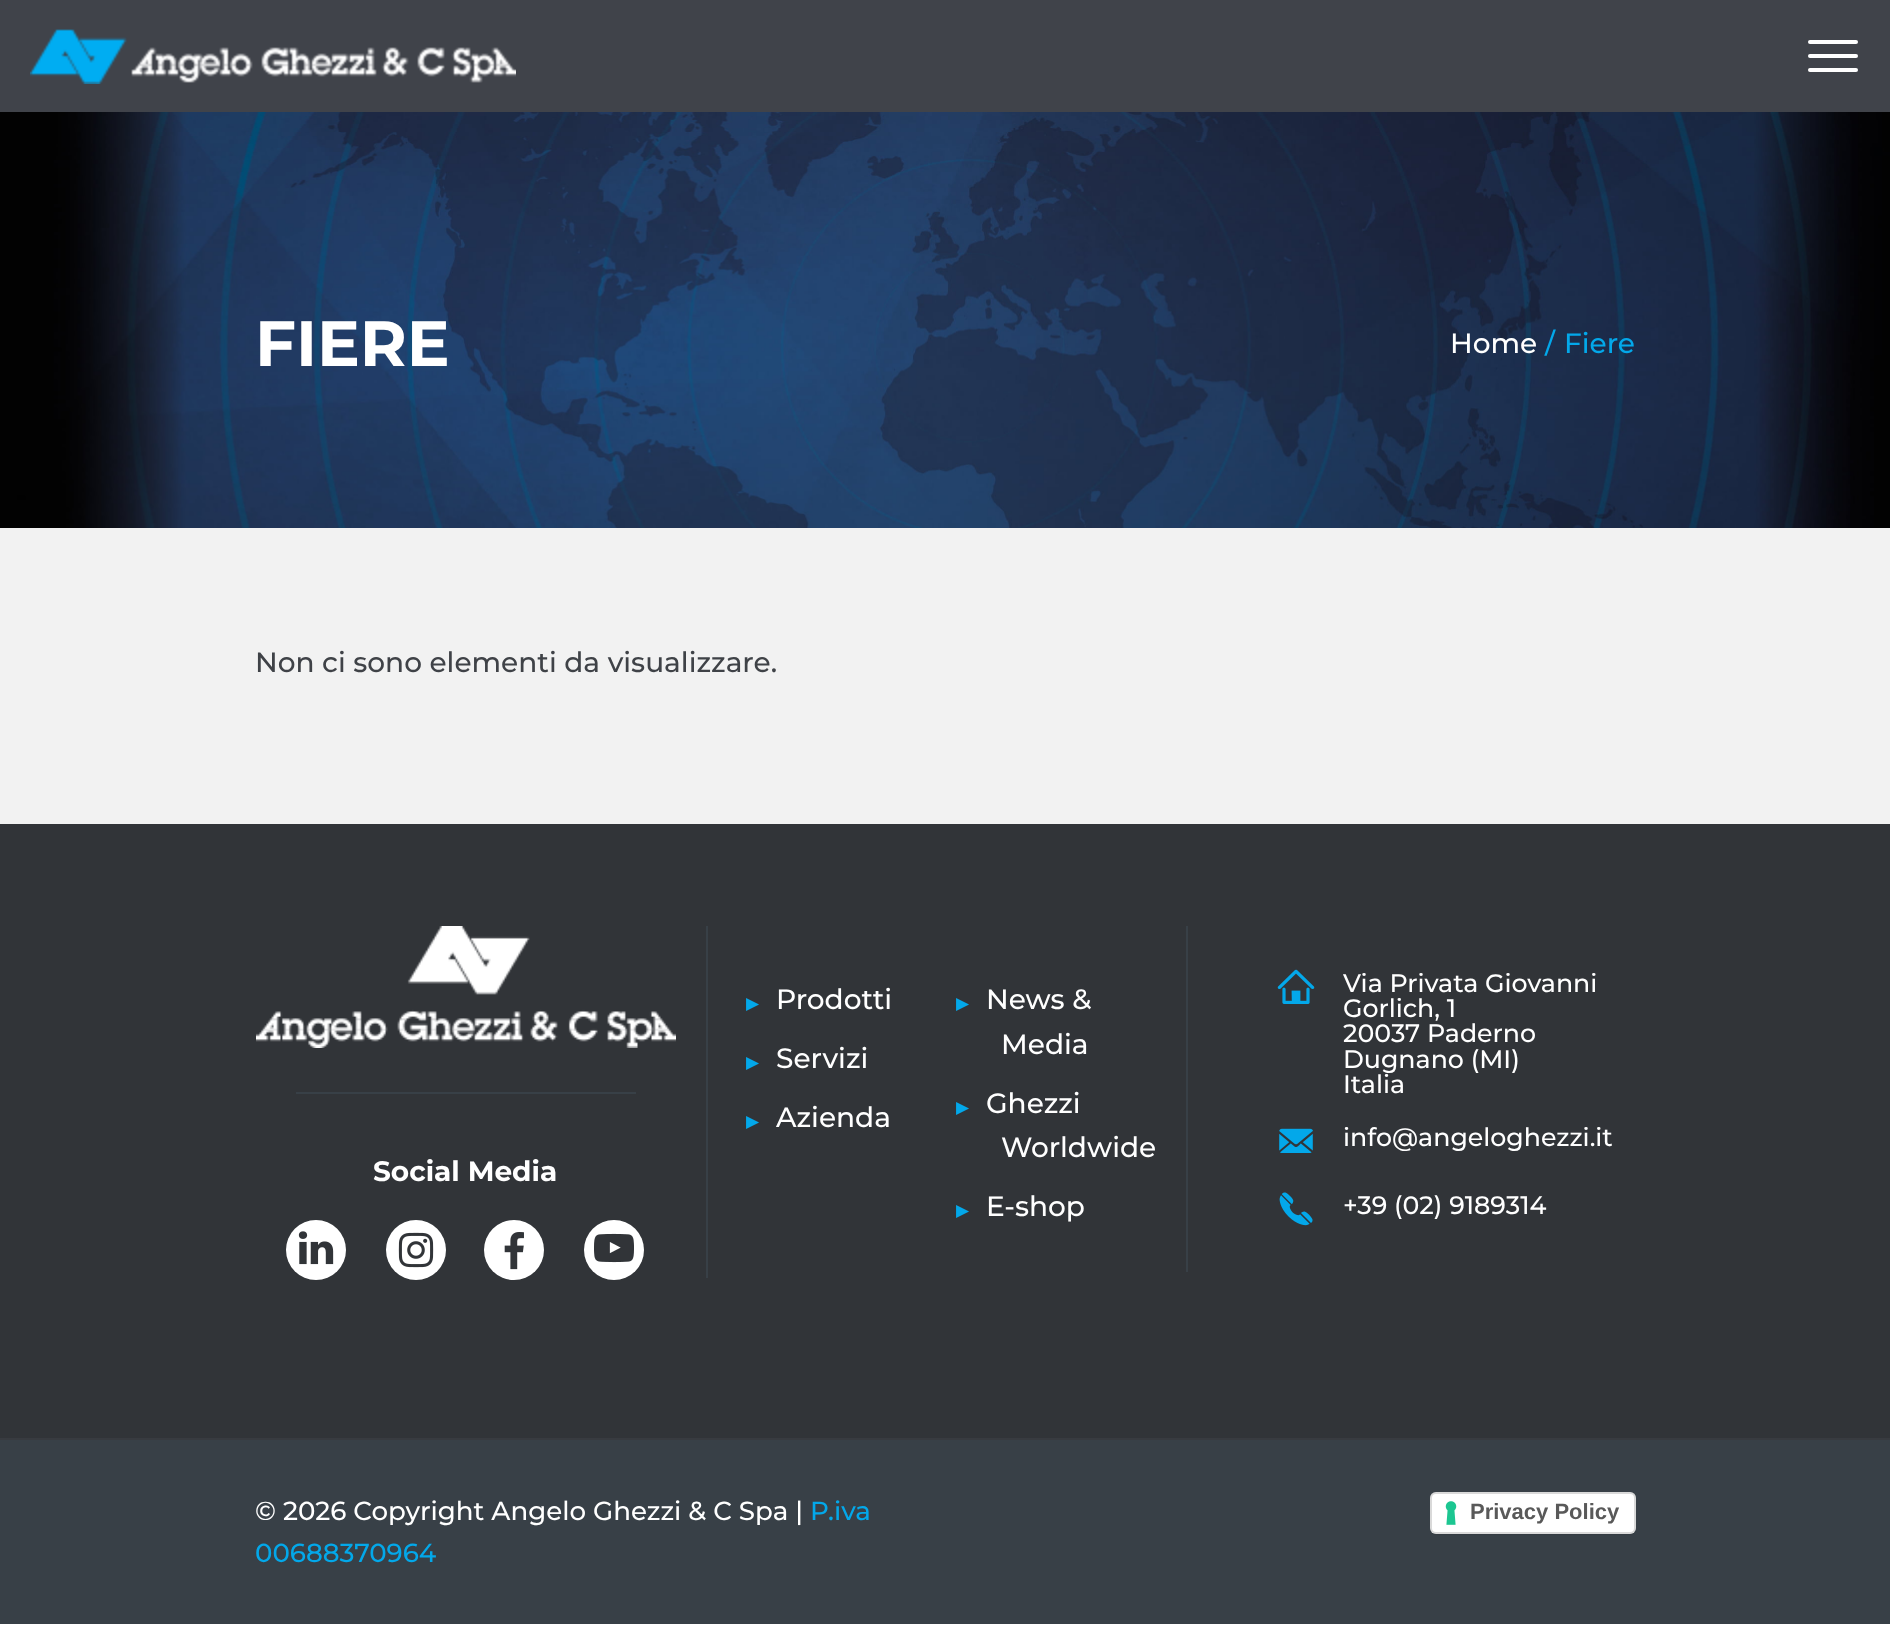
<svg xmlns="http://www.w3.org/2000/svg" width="1890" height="1631">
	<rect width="100%" height="100%" fill="#FFFFFF" />
	<rect x="0" y="0" width="1890" height="112" fill="#40434A" />
	<image x="30" y="29" width="486" height="55" href="assets/img1.png" />
	<rect x="1808" y="40" width="50" height="4" rx="2" fill="#FFFFFF" />
	<rect x="1808" y="54" width="50" height="4" rx="2" fill="#FFFFFF" />
	<rect x="1808" y="68" width="50" height="4" rx="2" fill="#FFFFFF" />
	<image x="0" y="112" width="1890" height="416" href="assets/img2.png" />
	<text x="255" y="366" font-family="Montserrat" font-size="64" font-weight="700" fill="#FFFFFF">FIERE</text>
	<text x="1450" y="353" font-family="Montserrat" font-size="28" font-weight="500" fill="#FFFFFF">Home</text>
	<g font-family="Montserrat" font-size="28" font-weight="500" fill="#03A8EA">
		<text x="1545" y="353">/</text>
		<text x="1564" y="353">Fiere</text>
	</g>
	<rect x="0" y="528" width="1890" height="296" fill="#F2F2F2" />
	<text x="255" y="672" font-family="Montserrat" font-size="28" font-weight="500" fill="#3F4247">Non ci sono elementi da visualizzare.</text>
	<rect x="0" y="1440" width="1890" height="184" fill="#384047" />
	<rect x="0" y="824" width="1890" height="614" fill="#313438" />
	<image x="256" y="926" width="420" height="122" href="assets/img3.png" />
	<rect x="296" y="1092" width="340" height="2" fill="#384047" />
	<text x="373" y="1181" font-family="Montserrat" font-size="28" font-weight="700" fill="#FFFFFF">Social Media</text>
	<circle cx="316" cy="1250" r="30" fill="#FFFFFF" />
	<image x="298" y="1231" width="36" height="34" href="assets/img4.png" />
	<circle cx="416" cy="1250" r="30" fill="#FFFFFF" />
	<image x="398" y="1232" width="36" height="36" href="assets/img5.png" />
	<circle cx="514" cy="1250" r="30" fill="#FFFFFF" />
	<image x="504" y="1232" width="20" height="38" href="assets/img6.png" />
	<circle cx="614" cy="1250" r="30" fill="#FFFFFF" />
	<image x="594" y="1233" width="40" height="30" href="assets/img7.png" />
	<rect x="706" y="926" width="2" height="352" fill="#384047" />
	<text x="746" y="1009" font-family="DejaVu Sans" font-size="17" fill="#03A8EA">▶</text>
	<text x="776" y="1009" font-family="Montserrat" font-size="28" font-weight="500" fill="#FFFFFF">Prodotti</text>
	<text x="746" y="1068" font-family="DejaVu Sans" font-size="17" fill="#03A8EA">▶</text>
	<text x="776" y="1068" font-family="Montserrat" font-size="28" font-weight="500" fill="#FFFFFF">Servizi</text>
	<text x="746" y="1127" font-family="DejaVu Sans" font-size="17" fill="#03A8EA">▶</text>
	<text x="776" y="1127" font-family="Montserrat" font-size="28" font-weight="500" fill="#FFFFFF">Azienda</text>
	<text x="956" y="1009" font-family="DejaVu Sans" font-size="17" fill="#03A8EA">▶</text>
	<g font-family="Montserrat" font-size="28" font-weight="500" fill="#FFFFFF">
		<text x="986" y="1009">News &amp;</text>
		<text x="1001" y="1054">Media</text>
	</g>
	<text x="956" y="1113" font-family="DejaVu Sans" font-size="17" fill="#03A8EA">▶</text>
	<g font-family="Montserrat" font-size="28" font-weight="500" fill="#FFFFFF">
		<text x="986" y="1113">Ghezzi</text>
		<text x="1001" y="1157">Worldwide</text>
	</g>
	<text x="956" y="1216" font-family="DejaVu Sans" font-size="17" fill="#03A8EA">▶</text>
	<text x="986" y="1216" font-family="Montserrat" font-size="28" font-weight="500" fill="#FFFFFF">E-shop</text>
	<rect x="1186" y="926" width="2" height="346" fill="#384047" />
	<image x="1277" y="969" width="38" height="35" href="assets/img8.png" />
	<g font-family="Montserrat" font-size="25.25" font-weight="500" fill="#FFFFFF">
		<text x="1343" y="992">Via Privata Giovanni</text>
		<text x="1343" y="1017">Gorlich, 1</text>
		<text x="1343" y="1042">20037 Paderno</text>
		<text x="1343" y="1068">Dugnano (MI)</text>
		<text x="1343" y="1093">Italia</text>
	</g>
	<image x="1279" y="1128" width="34" height="25" href="assets/img9.png" />
	<text x="1343" y="1146" font-family="Montserrat" font-size="25.25" font-weight="500" fill="#FFFFFF">info@angeloghezzi.it</text>
	<image x="1279" y="1192" width="34" height="34" href="assets/img10.png" />
	<text x="1343" y="1214" font-family="Montserrat" font-size="25.25" font-weight="500" fill="#FFFFFF">+39 (02) 9189314</text>
	<rect x="0" y="1438" width="1890" height="2" fill="#383B40" />
	<text x="255" y="1520" font-family="Montserrat" font-size="26.1" font-weight="500" fill="#FFFFFF">© 2026 Copyright Angelo Ghezzi &amp; C Spa |</text>
	<g font-family="Montserrat" font-size="26.1" font-weight="500" fill="#03A8EA">
		<text x="810" y="1520">P.iva</text>
		<text x="255" y="1562">00688370964</text>
	</g>
	<rect x="1432" y="1496" width="202" height="38" rx="4" fill="#000000" fill-opacity="0.15" filter="blur(1px)" />
	<rect x="1430" y="1492" width="206" height="42" rx="6" fill="#FFFFFF" />
	<image x="1445" y="1501" width="12" height="24" href="assets/img11.png" />
	<rect x="1431" y="1493" width="204" height="40" rx="5" fill="none" stroke="#000000" stroke-opacity="0.15" stroke-width="2" />
	<text x="1470" y="1519" font-family="Liberation Sans" font-size="22" font-weight="700" fill="#595959">Privacy Policy</text>
</svg>
